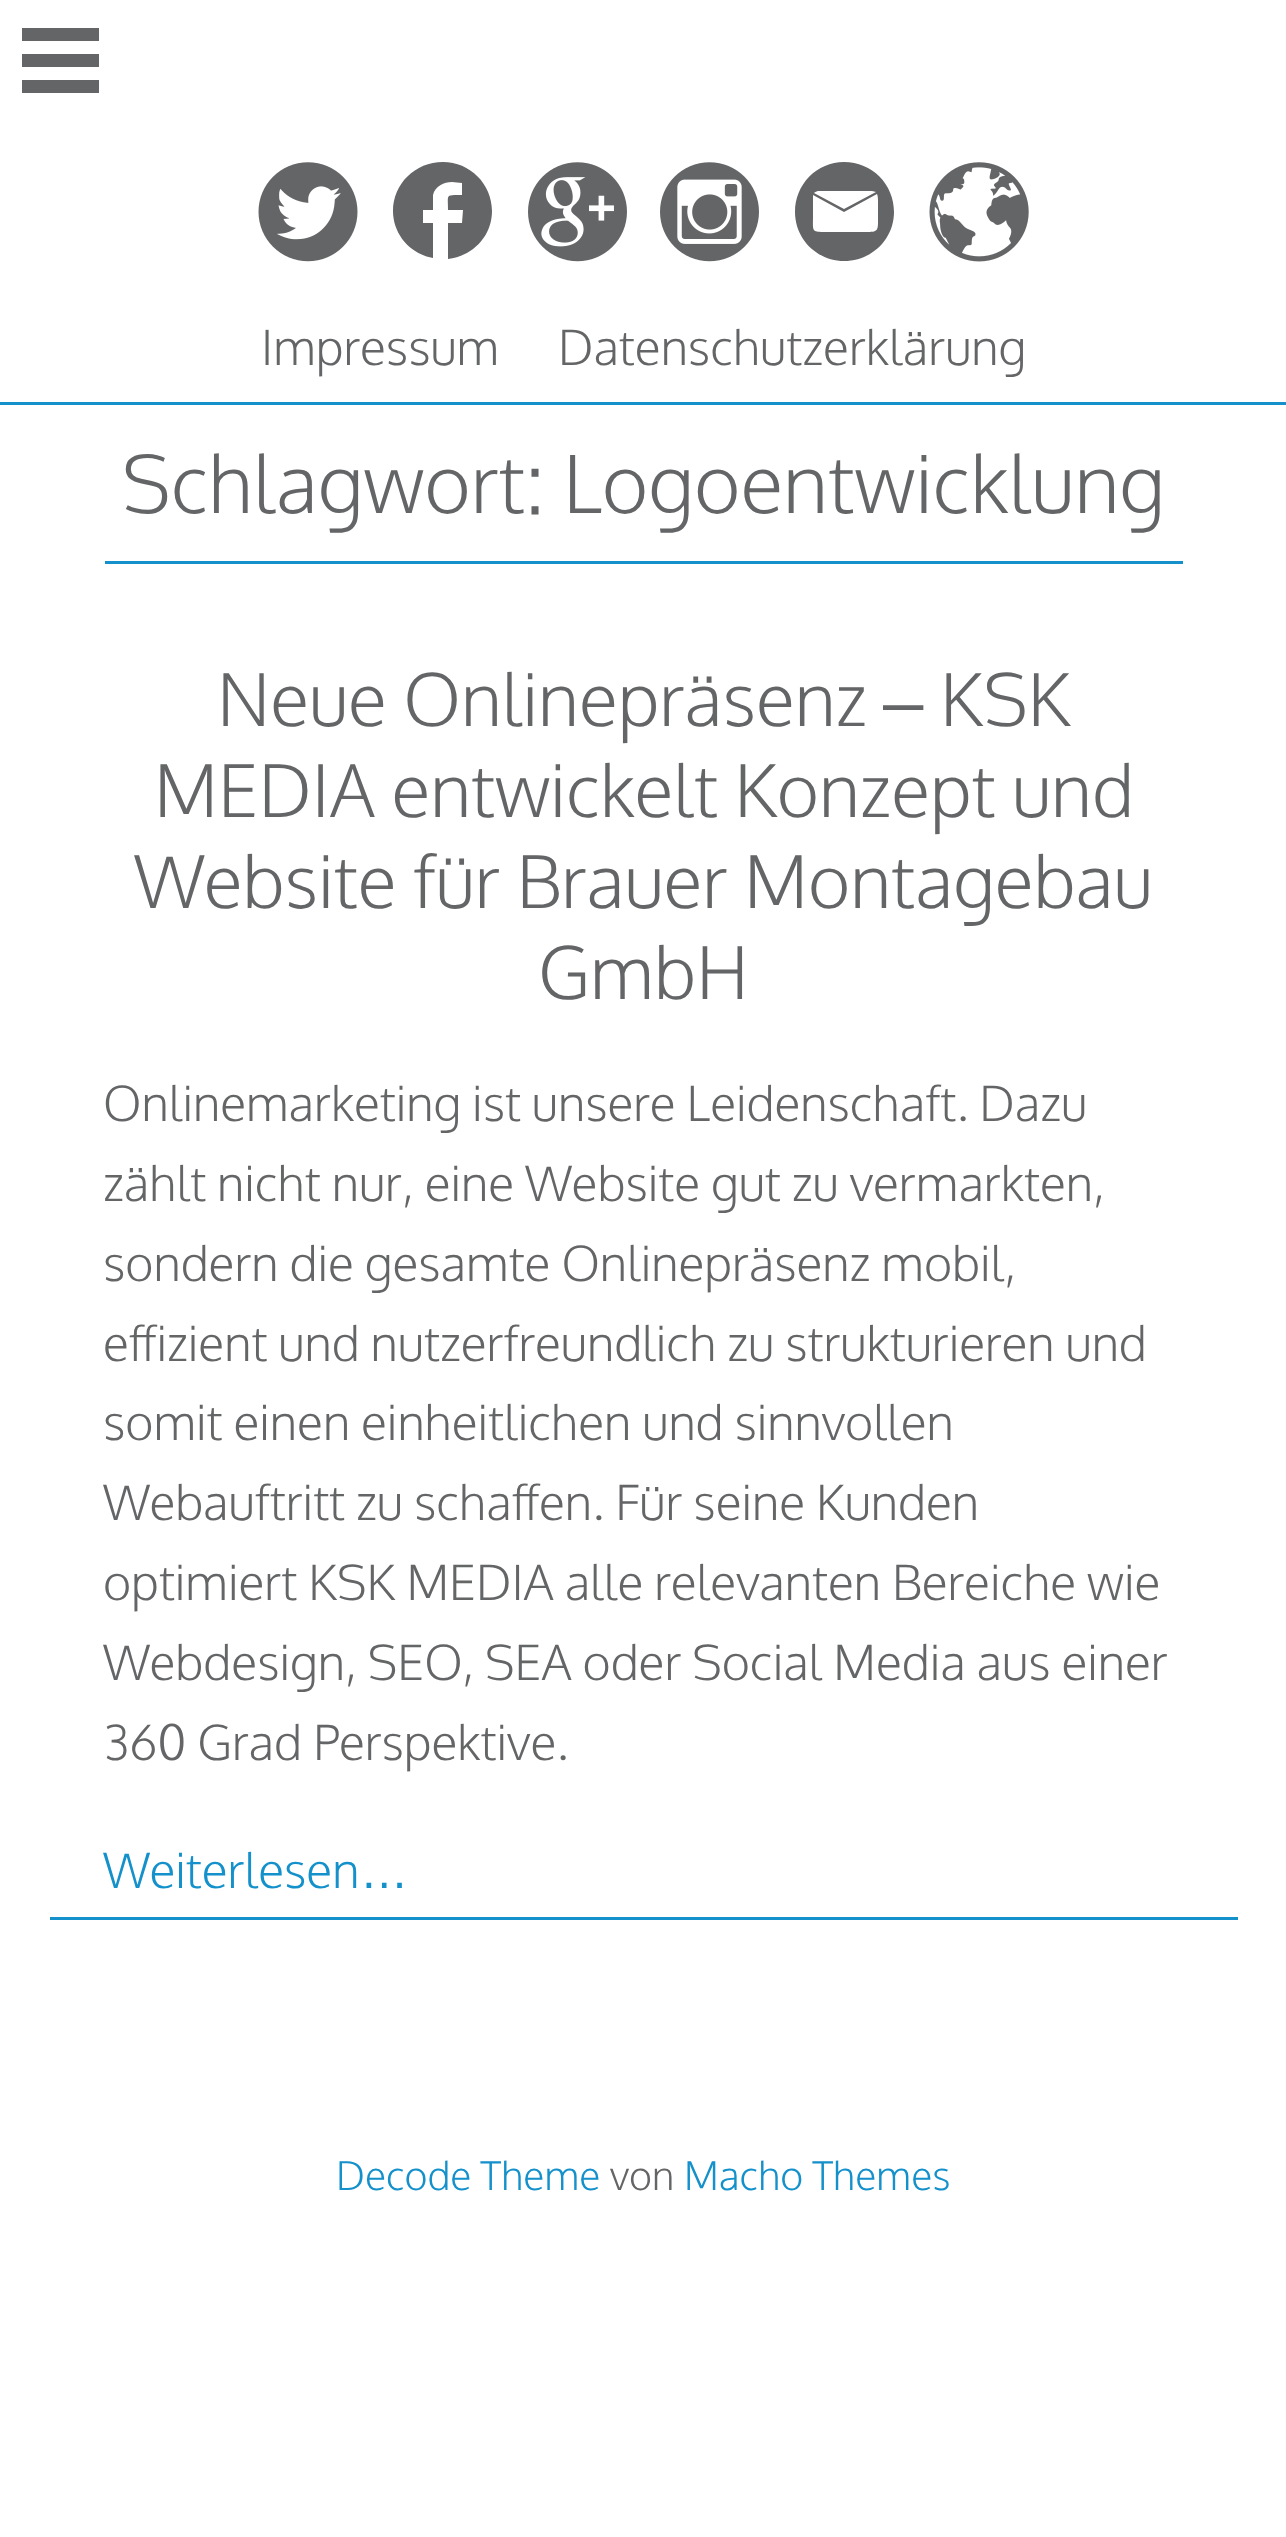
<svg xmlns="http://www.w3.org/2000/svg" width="1286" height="2537">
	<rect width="100%" height="100%" fill="#FFFFFF" />
	<rect x="22" y="28" width="77" height="13" fill="#646567" />
	<rect x="22" y="54" width="77" height="13" fill="#646567" />
	<rect x="22" y="80" width="77" height="13" fill="#646567" />
	<rect x="0" y="402" width="1286" height="3" fill="#1490CB" />
	<image x="258" y="162" width="100" height="100" href="assets/img1.png" />
	<path d="M443 162C470 162 492 184 492 211C492 236 473 256 448 259V223H462L463 210H448C448 194 445 195 462 195V183L452 182C444 182 435 186 433 195V210H423V223H433V258C410 254 393 234 393 211C393 184 415 162 443 162Z" fill="#646567" fill-rule="evenodd" />
	<image x="528" y="162" width="99" height="100" href="assets/img2.png" />
	<image x="660" y="162" width="99" height="100" href="assets/img3.png" />
	<path d="M818 191C817 191 815 192 814 193L844 209L876 192L872 191ZM813 195V216C813 232 811 232 827 232H863C879 232 878 232 878 216V202C878 200 878 196 877 194L844 212ZM844 162C872 162 894 184 894 212C894 239 872 261 844 261C817 261 795 239 795 212C795 184 817 162 844 162ZM880 193V190Z" fill="#646567" fill-rule="evenodd" />
	<image x="929" y="162" width="100" height="100" href="assets/img4.png" />
	<g font-family="Oxygen" font-size="48.4" font-weight="300" fill="#646567">
		<text x="261" y="365">Impressum</text>
		<text x="558" y="365">Datenschutzerklärung</text>
	</g>
	<rect x="105" y="561" width="1078" height="3" fill="#1490CB" />
	<text x="122" y="513" font-family="Oxygen" font-size="79.9" font-weight="300" fill="#646567">Schlagwort: Logoentwicklung</text>
	<text x="217" y="726" font-family="Oxygen" font-size="72.6" font-weight="300" fill="#646567">Neue Onlinepräsenz</text>
	<text x="883" y="726" font-family="Liberation Sans" font-size="72.6" fill="#646567">–</text>
	<g font-family="Oxygen" font-size="72.6" font-weight="300" fill="#646567">
		<text x="940" y="726">KSK</text>
		<text x="154" y="817">MEDIA entwickelt Konzept und</text>
		<text x="134" y="908">Website für Brauer Montagebau</text>
		<text x="538" y="999">GmbH</text>
	</g>
	<g font-family="Oxygen" font-size="48.4" font-weight="300" fill="#646567">
		<text x="103" y="1121">Onlinemarketing ist unsere Leidenschaft. Dazu</text>
		<text x="103" y="1201">zählt nicht nur, eine Website gut zu vermarkten,</text>
		<text x="103" y="1281">sondern die gesamte Onlinepräsenz mobil,</text>
		<text x="103" y="1361">effizient und nutzerfreundlich zu strukturieren und</text>
		<text x="103" y="1440">somit einen einheitlichen und sinnvollen</text>
		<text x="103" y="1520">Webauftritt zu schaffen. Für seine Kunden</text>
		<text x="103" y="1600">optimiert KSK MEDIA alle relevanten Bereiche wie</text>
		<text x="103" y="1680">Webdesign, SEO, SEA oder Social Media aus einer</text>
		<text x="103" y="1760">360 Grad Perspektive.</text>
	</g>
	<rect x="50" y="1917" width="1188" height="3" fill="#1490CB" />
	<text x="103" y="1888" font-family="Oxygen" font-size="48.4" font-weight="300" fill="#1490CB">Weiterlesen</text>
	<text x="360" y="1888" font-family="Liberation Sans" font-size="48.4" fill="#1490CB">…</text>
	<text x="336" y="2190" font-family="Oxygen" font-size="39.5" font-weight="300" fill="#1490CB">Decode Theme</text>
	<text x="610" y="2190" font-family="Oxygen" font-size="39.5" font-weight="300" fill="#646567">von</text>
	<text x="684" y="2190" font-family="Oxygen" font-size="39.5" font-weight="300" fill="#1490CB">Macho Themes</text>
</svg>
